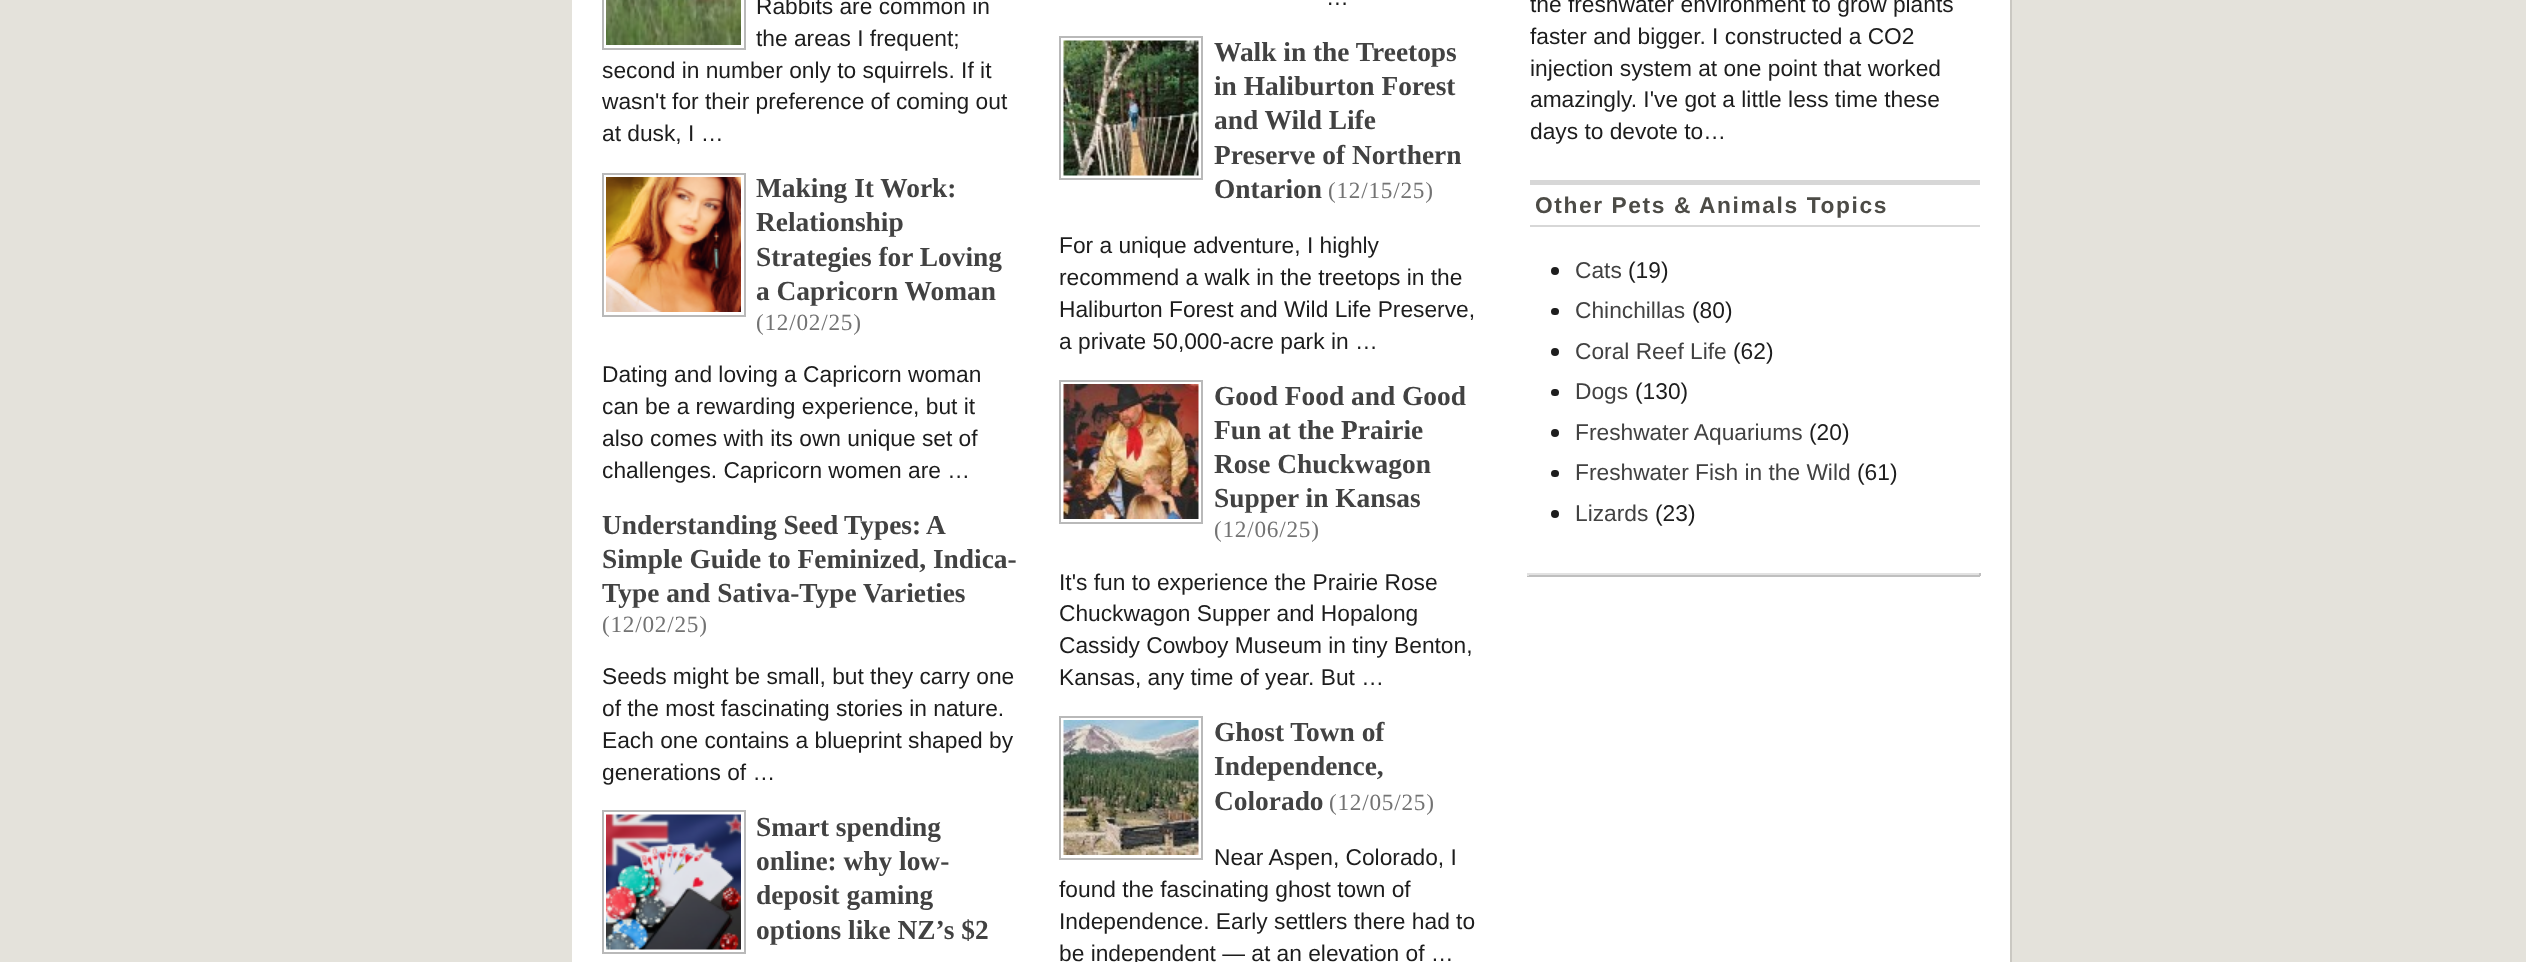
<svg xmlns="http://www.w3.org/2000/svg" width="2526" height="962">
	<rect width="100%" height="100%" fill="#E4E2DB" />
	<rect x="572" y="0" width="1438" height="962" fill="#FFFFFF" />
	<rect x="2010" y="0" width="2" height="962" fill="#CAC8C2" />
	<rect x="603" y="-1" width="142" height="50" fill="none" stroke="#B9B9B9" stroke-width="2" />
	<image x="606" y="0" width="135" height="45" href="assets/img1.png" />
	<g font-family="Liberation Sans" font-size="22.75" fill="#1D1D1D">
		<text x="756" y="14">Rabbits are common in</text>
		<text x="756" y="46">the areas I frequent;</text>
		<text x="602" y="78">second in number only to squirrels. If it</text>
		<text x="602" y="109">wasn't for their preference of coming out</text>
		<text x="602" y="141">at dusk, I …</text>
	</g>
	<rect x="603" y="174" width="142" height="142" fill="none" stroke="#B9B9B9" stroke-width="2" />
	<image x="606" y="177" width="135" height="135" href="assets/img2.png" />
	<g font-family="Liberation Serif" font-size="27.4" font-weight="700" fill="#424242">
		<text x="756" y="197">Making It Work:</text>
		<text x="756" y="231">Relationship</text>
		<text x="756" y="266">Strategies for Loving</text>
		<text x="756" y="300">a Capricorn Woman</text>
	</g>
	<text x="756" y="330" font-family="Liberation Serif" font-size="23.25" letter-spacing="0.75" fill="#737373">(12/02/25)</text>
	<g font-family="Liberation Sans" font-size="22.75" fill="#1D1D1D">
		<text x="602" y="382">Dating and loving a Capricorn woman</text>
		<text x="602" y="414">can be a rewarding experience, but it</text>
		<text x="602" y="446">also comes with its own unique set of</text>
		<text x="602" y="478">challenges. Capricorn women are …</text>
	</g>
	<g font-family="Liberation Serif" font-size="27.4" font-weight="700" fill="#424242">
		<text x="602" y="534" word-spacing="-0.5">Understanding Seed Types: A</text>
		<text x="602" y="568">Simple Guide to Feminized, Indica-</text>
		<text x="602" y="602">Type and Sativa-Type Varieties</text>
	</g>
	<text x="602" y="632" font-family="Liberation Serif" font-size="23.25" letter-spacing="0.75" fill="#737373">(12/02/25)</text>
	<g font-family="Liberation Sans" font-size="22.75" fill="#1D1D1D">
		<text x="602" y="684">Seeds might be small, but they carry one</text>
		<text x="602" y="716">of the most fascinating stories in nature.</text>
		<text x="602" y="748">Each one contains a blueprint shaped by</text>
		<text x="602" y="780">generations of …</text>
	</g>
	<rect x="603" y="811" width="142" height="142" fill="none" stroke="#B9B9B9" stroke-width="2" />
	<image x="606" y="814" width="135" height="136" href="assets/img3.png" />
	<g font-family="Liberation Serif" font-size="27.4" font-weight="700" fill="#424242">
		<text x="756" y="836">Smart spending</text>
		<text x="756" y="870">online: why low-</text>
		<text x="756" y="904">deposit gaming</text>
		<text x="756" y="939">options like NZ’s $2</text>
	</g>
	<text x="1326" y="5" font-family="Liberation Sans" font-size="22.75" fill="#1D1D1D">…</text>
	<rect x="1060" y="37" width="142" height="142" fill="none" stroke="#B9B9B9" stroke-width="2" />
	<image x="1063" y="40" width="136" height="136" href="assets/img4.png" />
	<g font-family="Liberation Serif" font-size="27.4" font-weight="700" fill="#424242">
		<text x="1214" y="61">Walk in the Treetops</text>
		<text x="1214" y="95">in Haliburton Forest</text>
		<text x="1214" y="129">and Wild Life</text>
		<text x="1214" y="164">Preserve of Northern</text>
		<text x="1214" y="198">Ontarion</text>
	</g>
	<text x="1328" y="198" font-family="Liberation Serif" font-size="23.25" letter-spacing="0.75" fill="#737373">(12/15/25)</text>
	<g font-family="Liberation Sans" font-size="22.75" fill="#1D1D1D">
		<text x="1059" y="253">For a unique adventure, I highly</text>
		<text x="1059" y="285">recommend a walk in the treetops in the</text>
		<text x="1059" y="317">Haliburton Forest and Wild Life Preserve,</text>
		<text x="1059" y="349">a private 50,000-acre park in …</text>
	</g>
	<rect x="1060" y="381" width="142" height="142" fill="none" stroke="#B9B9B9" stroke-width="2" />
	<image x="1063" y="384" width="136" height="135" href="assets/img5.png" />
	<g font-family="Liberation Serif" font-size="27.4" font-weight="700" fill="#424242">
		<text x="1214" y="405">Good Food and Good</text>
		<text x="1214" y="439">Fun at the Prairie</text>
		<text x="1214" y="473">Rose Chuckwagon</text>
		<text x="1214" y="507">Supper in Kansas</text>
	</g>
	<text x="1214" y="537" font-family="Liberation Serif" font-size="23.25" letter-spacing="0.75" fill="#737373">(12/06/25)</text>
	<g font-family="Liberation Sans" font-size="22.75" fill="#1D1D1D">
		<text x="1059" y="590">It's fun to experience the Prairie Rose</text>
		<text x="1059" y="621">Chuckwagon Supper and Hopalong</text>
		<text x="1059" y="653">Cassidy Cowboy Museum in tiny Benton,</text>
		<text x="1059" y="685">Kansas, any time of year. But …</text>
	</g>
	<rect x="1060" y="717" width="142" height="142" fill="none" stroke="#B9B9B9" stroke-width="2" />
	<image x="1063" y="720" width="136" height="135" href="assets/img6.png" />
	<g font-family="Liberation Serif" font-size="27.4" font-weight="700" fill="#424242">
		<text x="1214" y="741">Ghost Town of</text>
		<text x="1214" y="775">Independence,</text>
		<text x="1214" y="810">Colorado</text>
	</g>
	<text x="1329" y="810" font-family="Liberation Serif" font-size="23.25" letter-spacing="0.75" fill="#737373">(12/05/25)</text>
	<g font-family="Liberation Sans" font-size="22.75" fill="#1D1D1D">
		<text x="1214" y="865">Near Aspen, Colorado, I</text>
		<text x="1059" y="897">found the fascinating ghost town of</text>
		<text x="1059" y="929">Independence. Early settlers there had to</text>
		<text x="1059" y="961">be independent — at an elevation of …</text>
		<text x="1530" y="12">the freshwater environment to grow plants</text>
		<text x="1530" y="44">faster and bigger. I constructed a CO2</text>
		<text x="1530" y="76">injection system at one point that worked</text>
		<text x="1530" y="107">amazingly. I've got a little less time these</text>
		<text x="1530" y="139">days to devote to…</text>
	</g>
	<rect x="1530" y="180" width="450" height="5" fill="#D7D7D7" />
	<rect x="1530" y="225" width="450" height="2" fill="#D7D7D7" />
	<text x="1535" y="213" font-family="Liberation Sans" font-size="22.75" font-weight="700" letter-spacing="1.6" fill="#4C4B46">Other Pets &amp; Animals Topics</text>
	<circle cx="1555" cy="271" r="4" fill="#1D1D1D" />
	<text x="1575" y="278" font-family="Liberation Sans" font-size="22.75" fill="#424242">Cats</text>
	<text x="1628" y="278" font-family="Liberation Sans" font-size="22.75" fill="#1D1D1D">(19)</text>
	<rect x="1551" y="308" width="8" height="7" rx="3.5" fill="#1D1D1D" />
	<text x="1575" y="318" font-family="Liberation Sans" font-size="22.75" fill="#424242">Chinchillas</text>
	<text x="1692" y="318" font-family="Liberation Sans" font-size="22.75" fill="#1D1D1D">(80)</text>
	<circle cx="1555" cy="352" r="4" fill="#1D1D1D" />
	<text x="1575" y="359" font-family="Liberation Sans" font-size="22.75" fill="#424242">Coral Reef Life</text>
	<text x="1733" y="359" font-family="Liberation Sans" font-size="22.75" fill="#1D1D1D">(62)</text>
	<rect x="1551" y="389" width="8" height="7" rx="3.5" fill="#1D1D1D" />
	<text x="1575" y="399" font-family="Liberation Sans" font-size="22.75" fill="#424242">Dogs</text>
	<text x="1635" y="399" font-family="Liberation Sans" font-size="22.75" fill="#1D1D1D">(130)</text>
	<circle cx="1555" cy="433" r="4" fill="#1D1D1D" />
	<text x="1575" y="440" font-family="Liberation Sans" font-size="22.75" fill="#424242">Freshwater Aquariums</text>
	<text x="1809" y="440" font-family="Liberation Sans" font-size="22.75" fill="#1D1D1D">(20)</text>
	<rect x="1551" y="470" width="8" height="7" rx="3.5" fill="#1D1D1D" />
	<text x="1575" y="480" font-family="Liberation Sans" font-size="22.75" fill="#424242">Freshwater Fish in the Wild</text>
	<text x="1857" y="480" font-family="Liberation Sans" font-size="22.75" fill="#1D1D1D">(61)</text>
	<circle cx="1555" cy="514" r="4" fill="#1D1D1D" />
	<text x="1575" y="521" font-family="Liberation Sans" font-size="22.75" fill="#424242">Lizards</text>
	<text x="1655" y="521" font-family="Liberation Sans" font-size="22.75" fill="#1D1D1D">(23)</text>
	<rect x="1527" y="573" width="453" height="2" fill="#E2E2E2" />
	<rect x="1979" y="573" width="2" height="3" fill="#BFBFBF" />
	<rect x="1527" y="575" width="453" height="2" fill="#BFBFBF" />
	<rect x="1527" y="573" width="2" height="3" fill="#E2E2E2" />
</svg>
